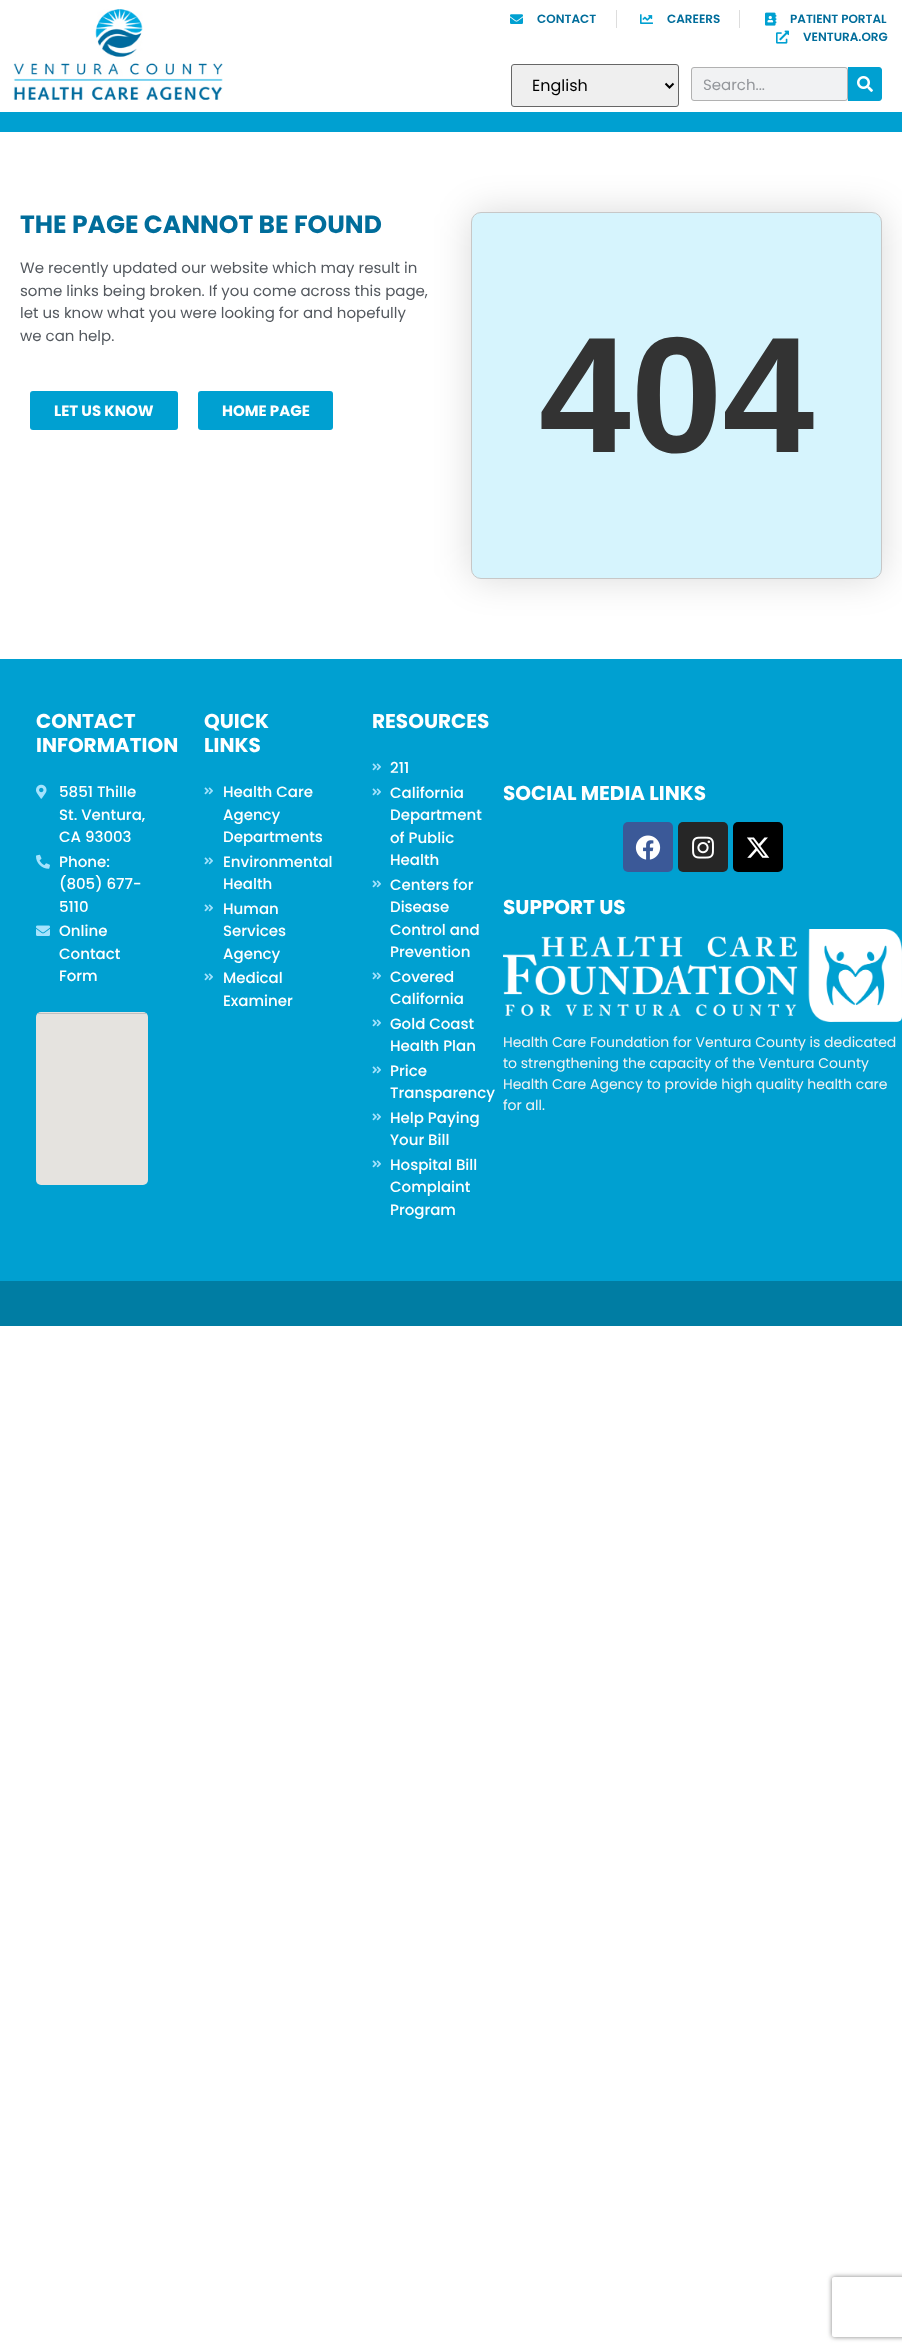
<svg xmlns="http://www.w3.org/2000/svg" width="902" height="2351">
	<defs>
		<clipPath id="clip1"><path d="M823 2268H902V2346H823ZM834 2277H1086C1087 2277 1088 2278 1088 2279V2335C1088 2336 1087 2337 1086 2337H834C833 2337 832 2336 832 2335V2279C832 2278 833 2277 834 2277Z" clip-rule="evenodd" /></clipPath>
	</defs>
	<rect width="100%" height="100%" fill="#FFFFFF" />
	<image x="13" y="9" width="210" height="91" href="assets/img1.png" />
	<image x="510" y="14" width="13" height="10" href="assets/img2.png" />
	<text x="537" y="23" font-family="Poppins" font-size="12" font-weight="600" fill="#006D9B">CONTACT</text>
	<rect x="616" y="10" width="1" height="18" fill="#DDDDDD" />
	<image x="640" y="14" width="13" height="10" href="assets/img3.png" />
	<text x="667" y="23" font-family="Poppins" font-size="12" font-weight="600" fill="#006D9B">CAREERS</text>
	<rect x="739" y="10" width="1" height="18" fill="#DDDDDD" />
	<image x="765" y="12" width="12" height="14" href="assets/img4.png" />
	<text x="790" y="23" font-family="Poppins" font-size="12" font-weight="600" fill="#006D9B">PATIENT PORTAL</text>
	<image x="776" y="30" width="13" height="14" href="assets/img5.png" />
	<text x="803" y="41" font-family="Poppins" font-size="12" font-weight="600" fill="#006D9B">VENTURA.ORG</text>
	<rect x="511.5" y="64.5" width="167" height="42" rx="2.5" fill="#EFEFEF" stroke="#666666" />
	<path d="M665.5 83.5L669.5 87.5L673.5 83.5" fill="none" stroke="#000000" stroke-width="2" />
	<text x="532" y="91" font-family="Poppins" font-size="16" fill="#000000">English</text>
	<rect x="691" y="67" width="191" height="34" rx="3" fill="#F1F2F3" />
	<rect x="691.5" y="67.5" width="156" height="33" rx="2.5" fill="none" stroke="#B1B1B1" />
	<text x="703" y="90" font-family="Poppins" font-size="15" fill="#93969A">Search...</text>
	<path d="M848 67H879C880.5 67 882 68.5 882 70V98C882 99.5 880.5 101 879 101H848Z" fill="#00A0D1" />
	<image x="857" y="76" width="16" height="16" href="assets/img6.png" />
	<rect x="0" y="112" width="902" height="20" fill="#00A0D1" />
	<text x="20" y="233" font-family="Poppins" font-size="25" font-weight="700" fill="#006D9B">THE PAGE CANNOT BE FOUND</text>
	<g font-family="Poppins" font-size="15" fill="#54595F">
		<text x="20" y="273">We recently updated our website which may result in</text>
		<text x="20" y="296">some links being broken. If you come across this page,</text>
		<text x="20" y="318">let us know what you were looking for and hopefully</text>
		<text x="20" y="341">we can help.</text>
	</g>
	<rect x="30" y="391" width="148" height="39" rx="3" fill="#00A0D1" />
	<text x="54" y="416" font-family="Poppins" font-size="15" font-weight="700" fill="#FFFFFF">LET US KNOW</text>
	<rect x="198" y="391" width="135" height="39" rx="3" fill="#00A0D1" />
	<text x="222" y="416" font-family="Poppins" font-size="15" font-weight="700" fill="#FFFFFF">HOME PAGE</text>
	<rect x="471" y="212" width="411" height="367" rx="10" fill="#000000" fill-opacity="0.15" filter="blur(18.5px)" />
	<rect x="471.5" y="212.5" width="410" height="366" rx="9.5" fill="#D6F4FD" stroke="#C7C7C7" />
	<text x="539" y="452" font-family="Liberation Sans" font-size="165" font-weight="700" fill="#333333">404</text>
	<rect x="0" y="659" width="902" height="622" fill="#00A0D1" />
	<g font-family="Poppins" font-size="20" font-weight="700" fill="#FFFFFF">
		<text x="36" y="728">CONTACT</text>
		<text x="36" y="752">INFORMATION</text>
	</g>
	<image x="36" y="784" width="11" height="15" href="assets/img7.png" />
	<g font-family="Poppins" font-size="15" font-weight="500" fill="#FFFFFF">
		<text x="59" y="797">5851 Thille</text>
		<text x="59" y="820">St. Ventura,</text>
		<text x="59" y="842">CA 93003</text>
	</g>
	<image x="36" y="854" width="14" height="15" href="assets/img8.png" />
	<g font-family="Poppins" font-size="15" font-weight="500" fill="#FFFFFF">
		<text x="59" y="867">Phone:</text>
		<text x="59" y="889">(805) 677-</text>
		<text x="59" y="912">5110</text>
	</g>
	<image x="36" y="925" width="14" height="11" href="assets/img9.png" />
	<g font-family="Poppins" font-size="15" font-weight="500" fill="#FFFFFF">
		<text x="59" y="936">Online</text>
		<text x="59" y="959">Contact</text>
		<text x="59" y="981">Form</text>
	</g>
	<image x="36" y="1012" width="112" height="173" href="assets/img10.png" />
	<g font-family="Poppins" font-size="20" font-weight="700" fill="#FFFFFF">
		<text x="204" y="728">QUICK</text>
		<text x="204" y="752">LINKS</text>
	</g>
	<image x="204" y="787" width="9" height="8" href="assets/img11.png" />
	<g font-family="Poppins" font-size="15" font-weight="500" fill="#FFFFFF">
		<text x="223" y="797">Health Care</text>
		<text x="223" y="820">Agency</text>
		<text x="223" y="842">Departments</text>
	</g>
	<image x="204" y="857" width="9" height="8" href="assets/img11.png" />
	<g font-family="Poppins" font-size="15" font-weight="500" fill="#FFFFFF">
		<text x="223" y="867">Environmental</text>
		<text x="223" y="889">Health</text>
	</g>
	<image x="204" y="904" width="9" height="8" href="assets/img11.png" />
	<g font-family="Poppins" font-size="15" font-weight="500" fill="#FFFFFF">
		<text x="223" y="914">Human</text>
		<text x="223" y="936">Services</text>
		<text x="223" y="959">Agency</text>
	</g>
	<image x="204" y="973" width="9" height="8" href="assets/img11.png" />
	<g font-family="Poppins" font-size="15" font-weight="500" fill="#FFFFFF">
		<text x="223" y="983">Medical</text>
		<text x="223" y="1006">Examiner</text>
	</g>
	<text x="372" y="728" font-family="Poppins" font-size="20" font-weight="700" fill="#FFFFFF">RESOURCES</text>
	<image x="372" y="763" width="9" height="8" href="assets/img11.png" />
	<text x="390" y="773" font-family="Poppins" font-size="15" font-weight="500" fill="#FFFFFF">211</text>
	<image x="372" y="788" width="9" height="8" href="assets/img11.png" />
	<g font-family="Poppins" font-size="15" font-weight="500" fill="#FFFFFF">
		<text x="390" y="798">California</text>
		<text x="390" y="820">Department</text>
		<text x="390" y="843">of Public</text>
		<text x="390" y="865">Health</text>
	</g>
	<image x="372" y="880" width="9" height="8" href="assets/img11.png" />
	<g font-family="Poppins" font-size="15" font-weight="500" fill="#FFFFFF">
		<text x="390" y="890">Centers for</text>
		<text x="390" y="912">Disease</text>
		<text x="390" y="935">Control and</text>
		<text x="390" y="957">Prevention</text>
	</g>
	<image x="372" y="972" width="9" height="8" href="assets/img11.png" />
	<g font-family="Poppins" font-size="15" font-weight="500" fill="#FFFFFF">
		<text x="390" y="982">Covered</text>
		<text x="390" y="1004">California</text>
	</g>
	<image x="372" y="1019" width="9" height="8" href="assets/img11.png" />
	<g font-family="Poppins" font-size="15" font-weight="500" fill="#FFFFFF">
		<text x="390" y="1029">Gold Coast</text>
		<text x="390" y="1051">Health Plan</text>
	</g>
	<image x="372" y="1066" width="9" height="8" href="assets/img11.png" />
	<g font-family="Poppins" font-size="15" font-weight="500" fill="#FFFFFF">
		<text x="390" y="1076">Price</text>
		<text x="390" y="1098">Transparency</text>
	</g>
	<image x="372" y="1113" width="9" height="8" href="assets/img11.png" />
	<g font-family="Poppins" font-size="15" font-weight="500" fill="#FFFFFF">
		<text x="390" y="1123">Help Paying</text>
		<text x="390" y="1145">Your Bill</text>
	</g>
	<image x="372" y="1160" width="9" height="8" href="assets/img11.png" />
	<g font-family="Poppins" font-size="15" font-weight="500" fill="#FFFFFF">
		<text x="390" y="1170">Hospital Bill</text>
		<text x="390" y="1192">Complaint</text>
		<text x="390" y="1215">Program</text>
	</g>
	<text x="503" y="800" font-family="Poppins" font-size="20" font-weight="700" fill="#FFFFFF">SOCIAL MEDIA LINKS</text>
	<rect x="623" y="822" width="50" height="50" rx="5" fill="#3B5998" />
	<image x="635" y="835" width="26" height="25" href="assets/img12.png" />
	<rect x="678" y="822" width="50" height="50" rx="5" fill="#262626" />
	<image x="692" y="836" width="22" height="23" href="assets/img13.png" />
	<rect x="733" y="822" width="50" height="50" rx="5" fill="#000000" />
	<image x="747" y="837" width="23" height="21" href="assets/img14.png" />
	<text x="503" y="914" font-family="Poppins" font-size="20" font-weight="700" fill="#FFFFFF">SUPPORT US</text>
	<image x="503" y="929" width="399" height="93" href="assets/img15.png" />
	<g font-family="Poppins" font-size="14" fill="#F3F3F3">
		<text x="503" y="1047">Health Care Foundation for Ventura County is dedicated</text>
		<text x="503" y="1068">to strengthening the capacity of the Ventura County</text>
		<text x="503" y="1089">Health Care Agency to provide high quality health care</text>
		<text x="503" y="1110">for all.</text>
	</g>
	<rect x="0" y="1281" width="902" height="45" fill="#007DA3" />
	<g clip-path="url(#clip1)">
		<rect x="832" y="2277" width="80" height="60" rx="2" fill="#808080" filter="blur(2.5px)" />
	</g>
</svg>
